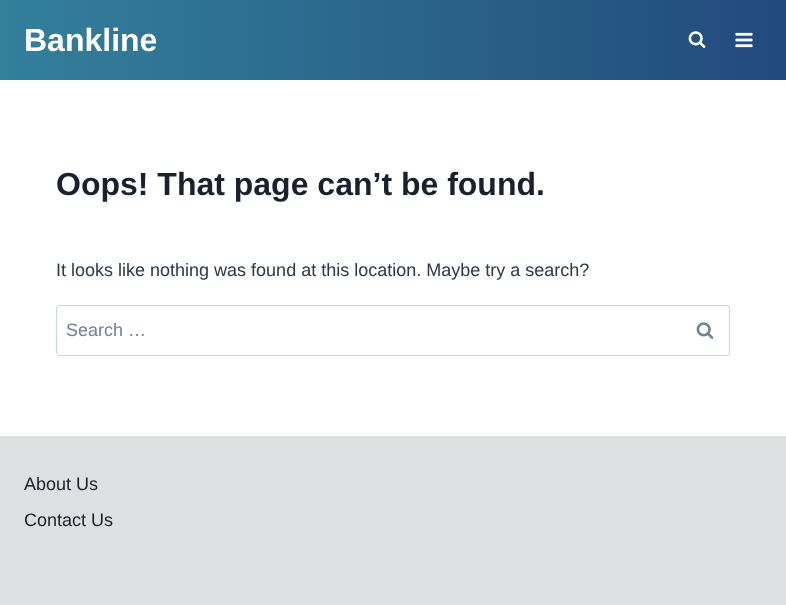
<svg xmlns="http://www.w3.org/2000/svg" width="786" height="605">
	<defs>
		<linearGradient id="g1" gradientUnits="userSpaceOnUse" x1="0" y1="40" x2="786" y2="40"><stop offset="0" stop-color="#33809B" /><stop offset="1" stop-color="#224A7C" /></linearGradient>
	</defs>
	<rect width="100%" height="100%" fill="#FFFFFF" />
	<rect x="0" y="0" width="786" height="80" fill="url(#g1)" />
	<text x="24" y="51" font-family="Liberation Sans" font-size="32" font-weight="700" fill="#FFFFFF">Bankline</text>
	<image x="688" y="31" width="18" height="17" href="assets/img1.png" />
	<image x="735" y="32" width="18" height="16" href="assets/img2.png" />
	<text x="56" y="195" font-family="Liberation Sans" font-size="32" font-weight="700" fill="#1A202C">Oops! That page can’t be found.</text>
	<text x="56" y="276" font-family="Liberation Sans" font-size="18" fill="#2D3748">It looks like nothing was found at this location. Maybe try a search?</text>
	<rect x="56.5" y="305.5" width="673" height="50" rx="2.5" fill="none" stroke="#CBD5E0" />
	<text x="66" y="336" font-family="Liberation Sans" font-size="18" fill="#718096">Search …</text>
	<image x="696" y="322" width="18" height="17" href="assets/img3.png" />
	<rect x="0" y="436" width="786" height="169" fill="#DFE0E1" />
	<g font-family="Liberation Sans" font-size="18" fill="#1A202C">
		<text x="24" y="490">About Us</text>
		<text x="24" y="526">Contact Us</text>
	</g>
</svg>
